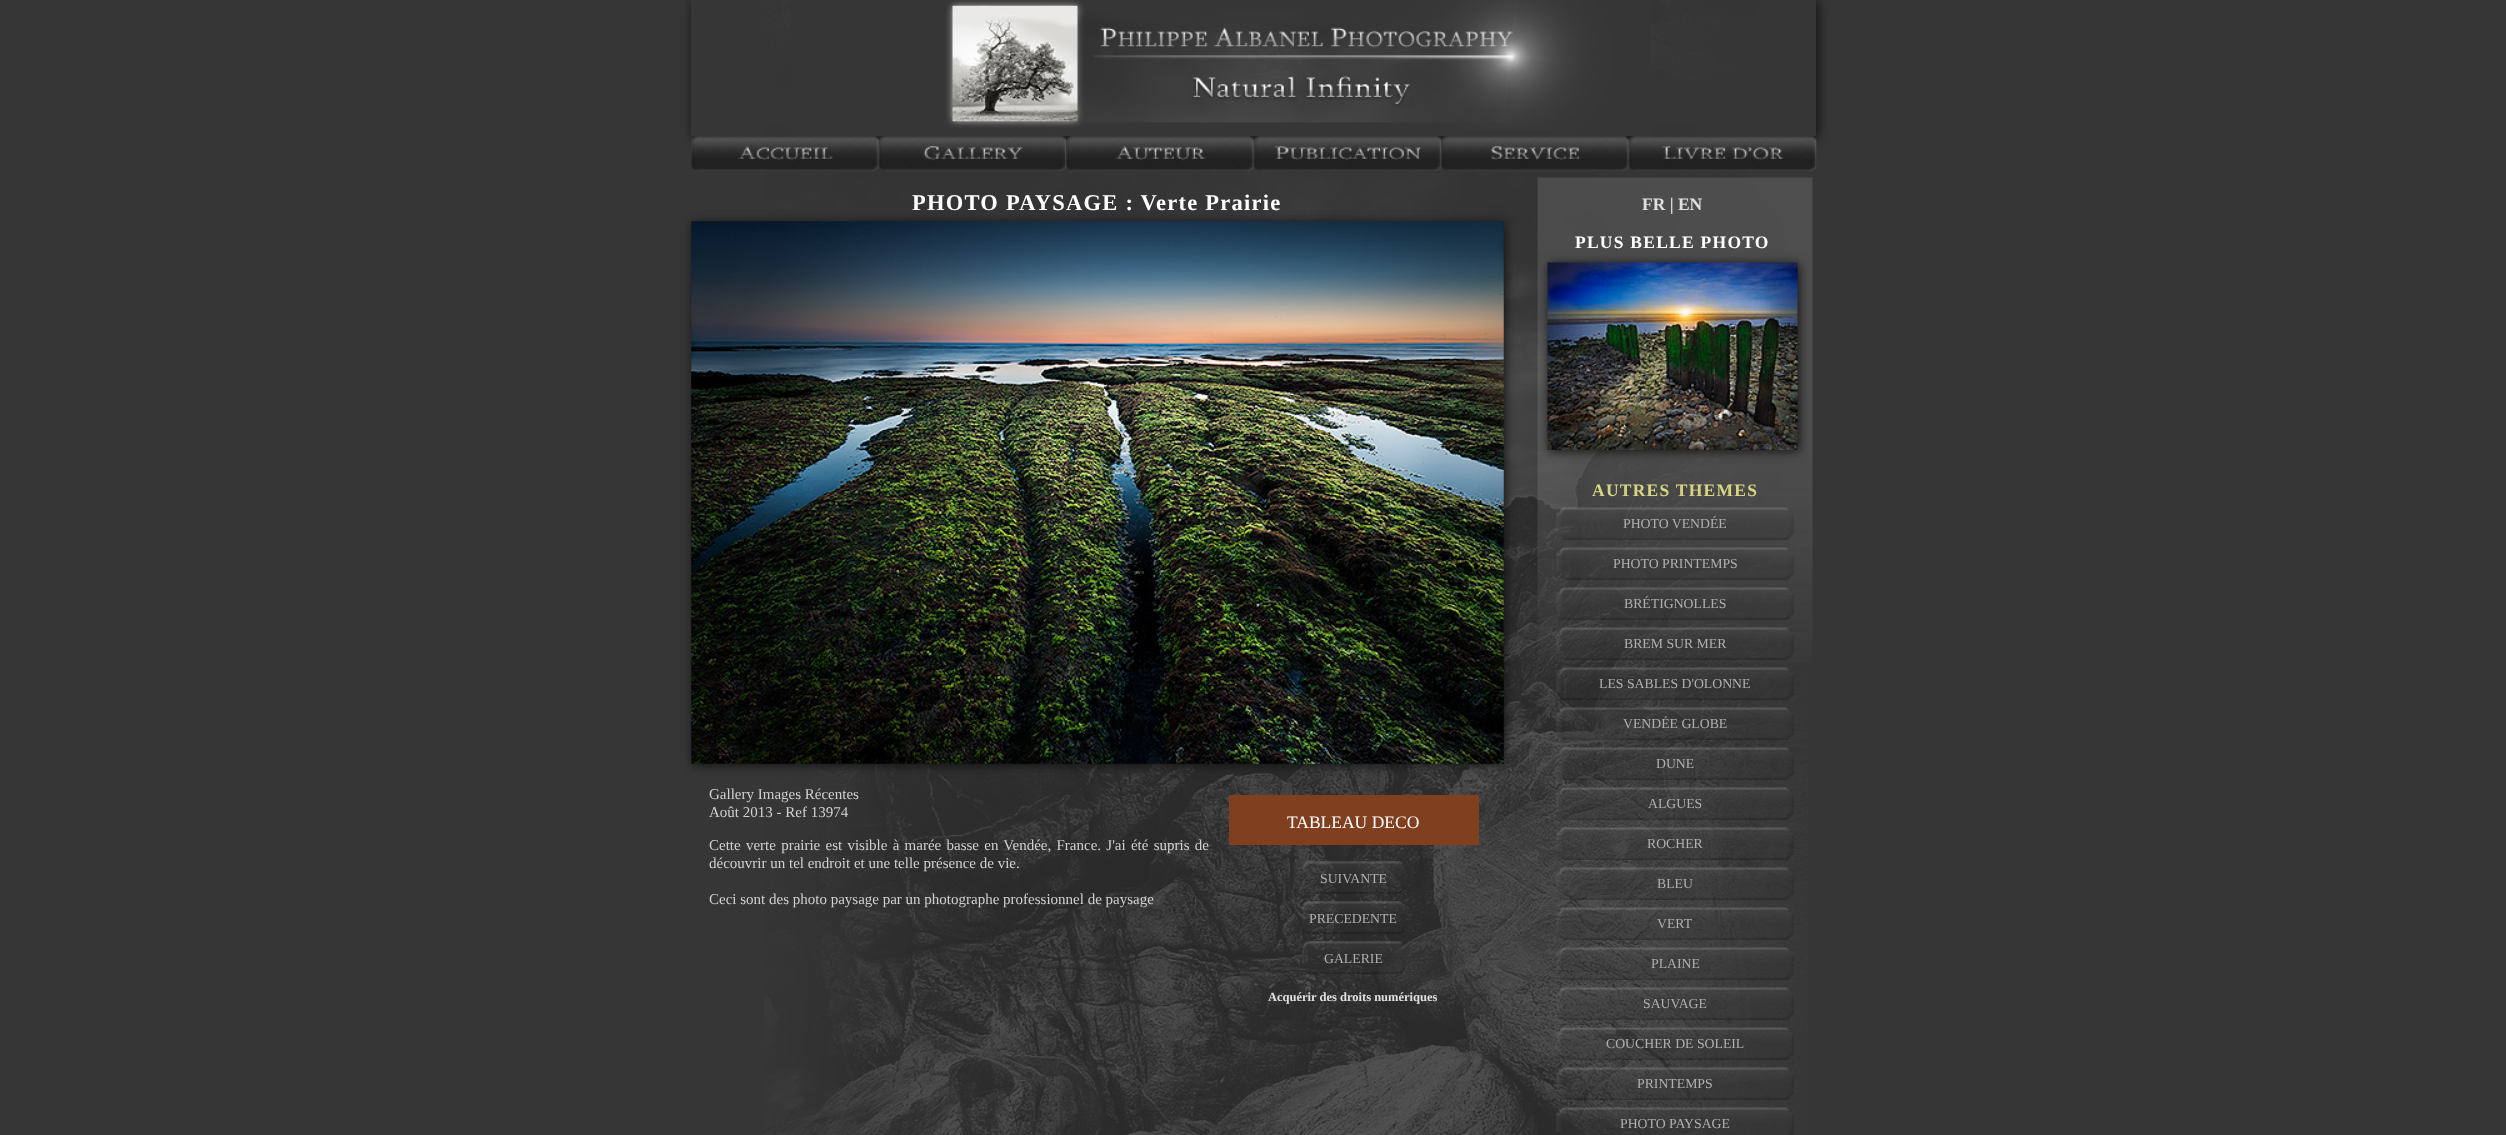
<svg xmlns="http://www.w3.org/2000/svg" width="2506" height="1135">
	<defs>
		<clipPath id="clip1"><path d="M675 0H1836V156H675ZM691 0H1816V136H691Z" clip-rule="evenodd" /></clipPath>
	</defs>
	<rect width="100%" height="100%" fill="#363636" />
	<image x="764" y="0" width="1044" height="1135" href="assets/img1.png" />
	<g clip-path="url(#clip1)">
		<rect x="693" y="1" width="1125" height="137" fill="#111111" filter="blur(5.5px)" />
	</g>
	<image x="791" y="0" width="860" height="137" href="assets/img2.png" />
	<image x="691" y="136" width="188" height="35" href="assets/img3.png" />
	<image x="878" y="136" width="189" height="35" href="assets/img4.png" />
	<image x="1066" y="136" width="188" height="35" href="assets/img5.png" />
	<image x="1253" y="136" width="189" height="35" href="assets/img6.png" />
	<image x="1441" y="136" width="188" height="35" href="assets/img7.png" />
	<image x="1628" y="136" width="189" height="35" href="assets/img8.png" />
	<text x="912" y="210" font-family="Liberation Serif" font-size="22.5" font-weight="700" letter-spacing="1.25" fill="#FFFFFF">PHOTO PAYSAGE : Verte Prairie</text>
	<rect x="693" y="223" width="812" height="542" fill="#111111" filter="blur(5.5px)" />
	<image x="691" y="221" width="813" height="543" href="assets/img9.png" />
	<g font-family="Liberation Serif" font-size="15" fill="#D0D0D0">
		<text x="709" y="799">Gallery Images Récentes</text>
		<text x="709" y="817">Août 2013 - Ref 13974</text>
		<text x="709" y="850" word-spacing="1.5">Cette verte prairie est visible à marée basse en Vendée, France. J'ai été supris de</text>
		<text x="709" y="868">découvrir un tel endroit et une telle présence de vie.</text>
		<text x="709" y="904">Ceci sont des photo paysage par un photographe professionnel de paysage</text>
	</g>
	<rect x="1229" y="795" width="250" height="50" fill="#804020" />
	<text x="1287" y="828" font-family="Liberation Serif" font-size="17.5" fill="#FFFFFF">TABLEAU DECO</text>
	<image x="1302" y="861" width="103" height="33" href="assets/img10.png" />
	<text x="1320" y="883" font-family="Liberation Serif" font-size="13.75" fill="#B0B0B0">SUIVANTE</text>
	<image x="1302" y="901" width="103" height="33" href="assets/img11.png" />
	<text x="1309" y="923" font-family="Liberation Serif" font-size="13.75" fill="#B0B0B0">PRECEDENTE</text>
	<image x="1302" y="941" width="103" height="33" href="assets/img12.png" />
	<text x="1324" y="963" font-family="Liberation Serif" font-size="13.75" fill="#B0B0B0">GALERIE</text>
	<text x="1268" y="1001" font-family="Liberation Serif" font-size="12.5" font-weight="700" fill="#E0E0E0">Acquérir des droits numériques</text>
	<image x="1537" y="177" width="276" height="486" href="assets/img13.png" />
	<text x="1642" y="210" font-family="Liberation Serif" font-size="17.5" font-weight="700" fill="#E0E0E0">FR | EN</text>
	<text x="1575" y="248" font-family="Liberation Serif" font-size="17.5" font-weight="700" letter-spacing="1.25" fill="#FFFFFF">PLUS BELLE PHOTO</text>
	<rect x="1549" y="264" width="250" height="187" fill="#111111" filter="blur(5.5px)" />
	<image x="1547" y="262" width="251" height="188" href="assets/img14.png" />
	<text x="1592" y="496" font-family="Liberation Serif" font-size="17.5" font-weight="700" letter-spacing="1.25" fill="#D9D683">AUTRES THEMES</text>
	<image x="1556" y="507" width="238" height="33" href="assets/img15.png" />
	<text x="1623" y="528" font-family="Liberation Serif" font-size="13.75" fill="#B0B0B0">PHOTO VENDÉE</text>
	<image x="1556" y="547" width="238" height="33" href="assets/img16.png" />
	<text x="1613" y="568" font-family="Liberation Serif" font-size="13.75" fill="#B0B0B0">PHOTO PRINTEMPS</text>
	<image x="1556" y="587" width="238" height="33" href="assets/img17.png" />
	<text x="1624" y="608" font-family="Liberation Serif" font-size="13.75" fill="#B0B0B0">BRÉTIGNOLLES</text>
	<image x="1556" y="627" width="238" height="33" href="assets/img18.png" />
	<text x="1624" y="648" font-family="Liberation Serif" font-size="13.75" fill="#B0B0B0">BREM SUR MER</text>
	<image x="1556" y="667" width="238" height="33" href="assets/img19.png" />
	<text x="1599" y="688" font-family="Liberation Serif" font-size="13.75" fill="#B0B0B0">LES SABLES D'OLONNE</text>
	<image x="1556" y="707" width="238" height="33" href="assets/img20.png" />
	<text x="1623" y="728" font-family="Liberation Serif" font-size="13.75" fill="#B0B0B0">VENDÉE GLOBE</text>
	<image x="1556" y="747" width="238" height="33" href="assets/img21.png" />
	<text x="1656" y="768" font-family="Liberation Serif" font-size="13.75" fill="#B0B0B0">DUNE</text>
	<image x="1556" y="787" width="238" height="33" href="assets/img22.png" />
	<text x="1648" y="808" font-family="Liberation Serif" font-size="13.75" fill="#B0B0B0">ALGUES</text>
	<image x="1556" y="827" width="238" height="33" href="assets/img23.png" />
	<text x="1647" y="848" font-family="Liberation Serif" font-size="13.75" fill="#B0B0B0">ROCHER</text>
	<image x="1556" y="867" width="238" height="33" href="assets/img24.png" />
	<text x="1657" y="888" font-family="Liberation Serif" font-size="13.75" fill="#B0B0B0">BLEU</text>
	<image x="1556" y="907" width="238" height="33" href="assets/img25.png" />
	<text x="1657" y="928" font-family="Liberation Serif" font-size="13.75" fill="#B0B0B0">VERT</text>
	<image x="1556" y="947" width="238" height="33" href="assets/img26.png" />
	<text x="1651" y="968" font-family="Liberation Serif" font-size="13.75" fill="#B0B0B0">PLAINE</text>
	<image x="1556" y="987" width="238" height="33" href="assets/img27.png" />
	<text x="1643" y="1008" font-family="Liberation Serif" font-size="13.75" fill="#B0B0B0">SAUVAGE</text>
	<image x="1556" y="1027" width="238" height="33" href="assets/img28.png" />
	<text x="1606" y="1048" font-family="Liberation Serif" font-size="13.75" fill="#B0B0B0">COUCHER DE SOLEIL</text>
	<image x="1556" y="1067" width="238" height="33" href="assets/img29.png" />
	<text x="1637" y="1088" font-family="Liberation Serif" font-size="13.75" fill="#B0B0B0">PRINTEMPS</text>
	<image x="1556" y="1107" width="238" height="28" href="assets/img30.png" />
	<text x="1620" y="1128" font-family="Liberation Serif" font-size="13.75" fill="#B0B0B0">PHOTO PAYSAGE</text>
</svg>
